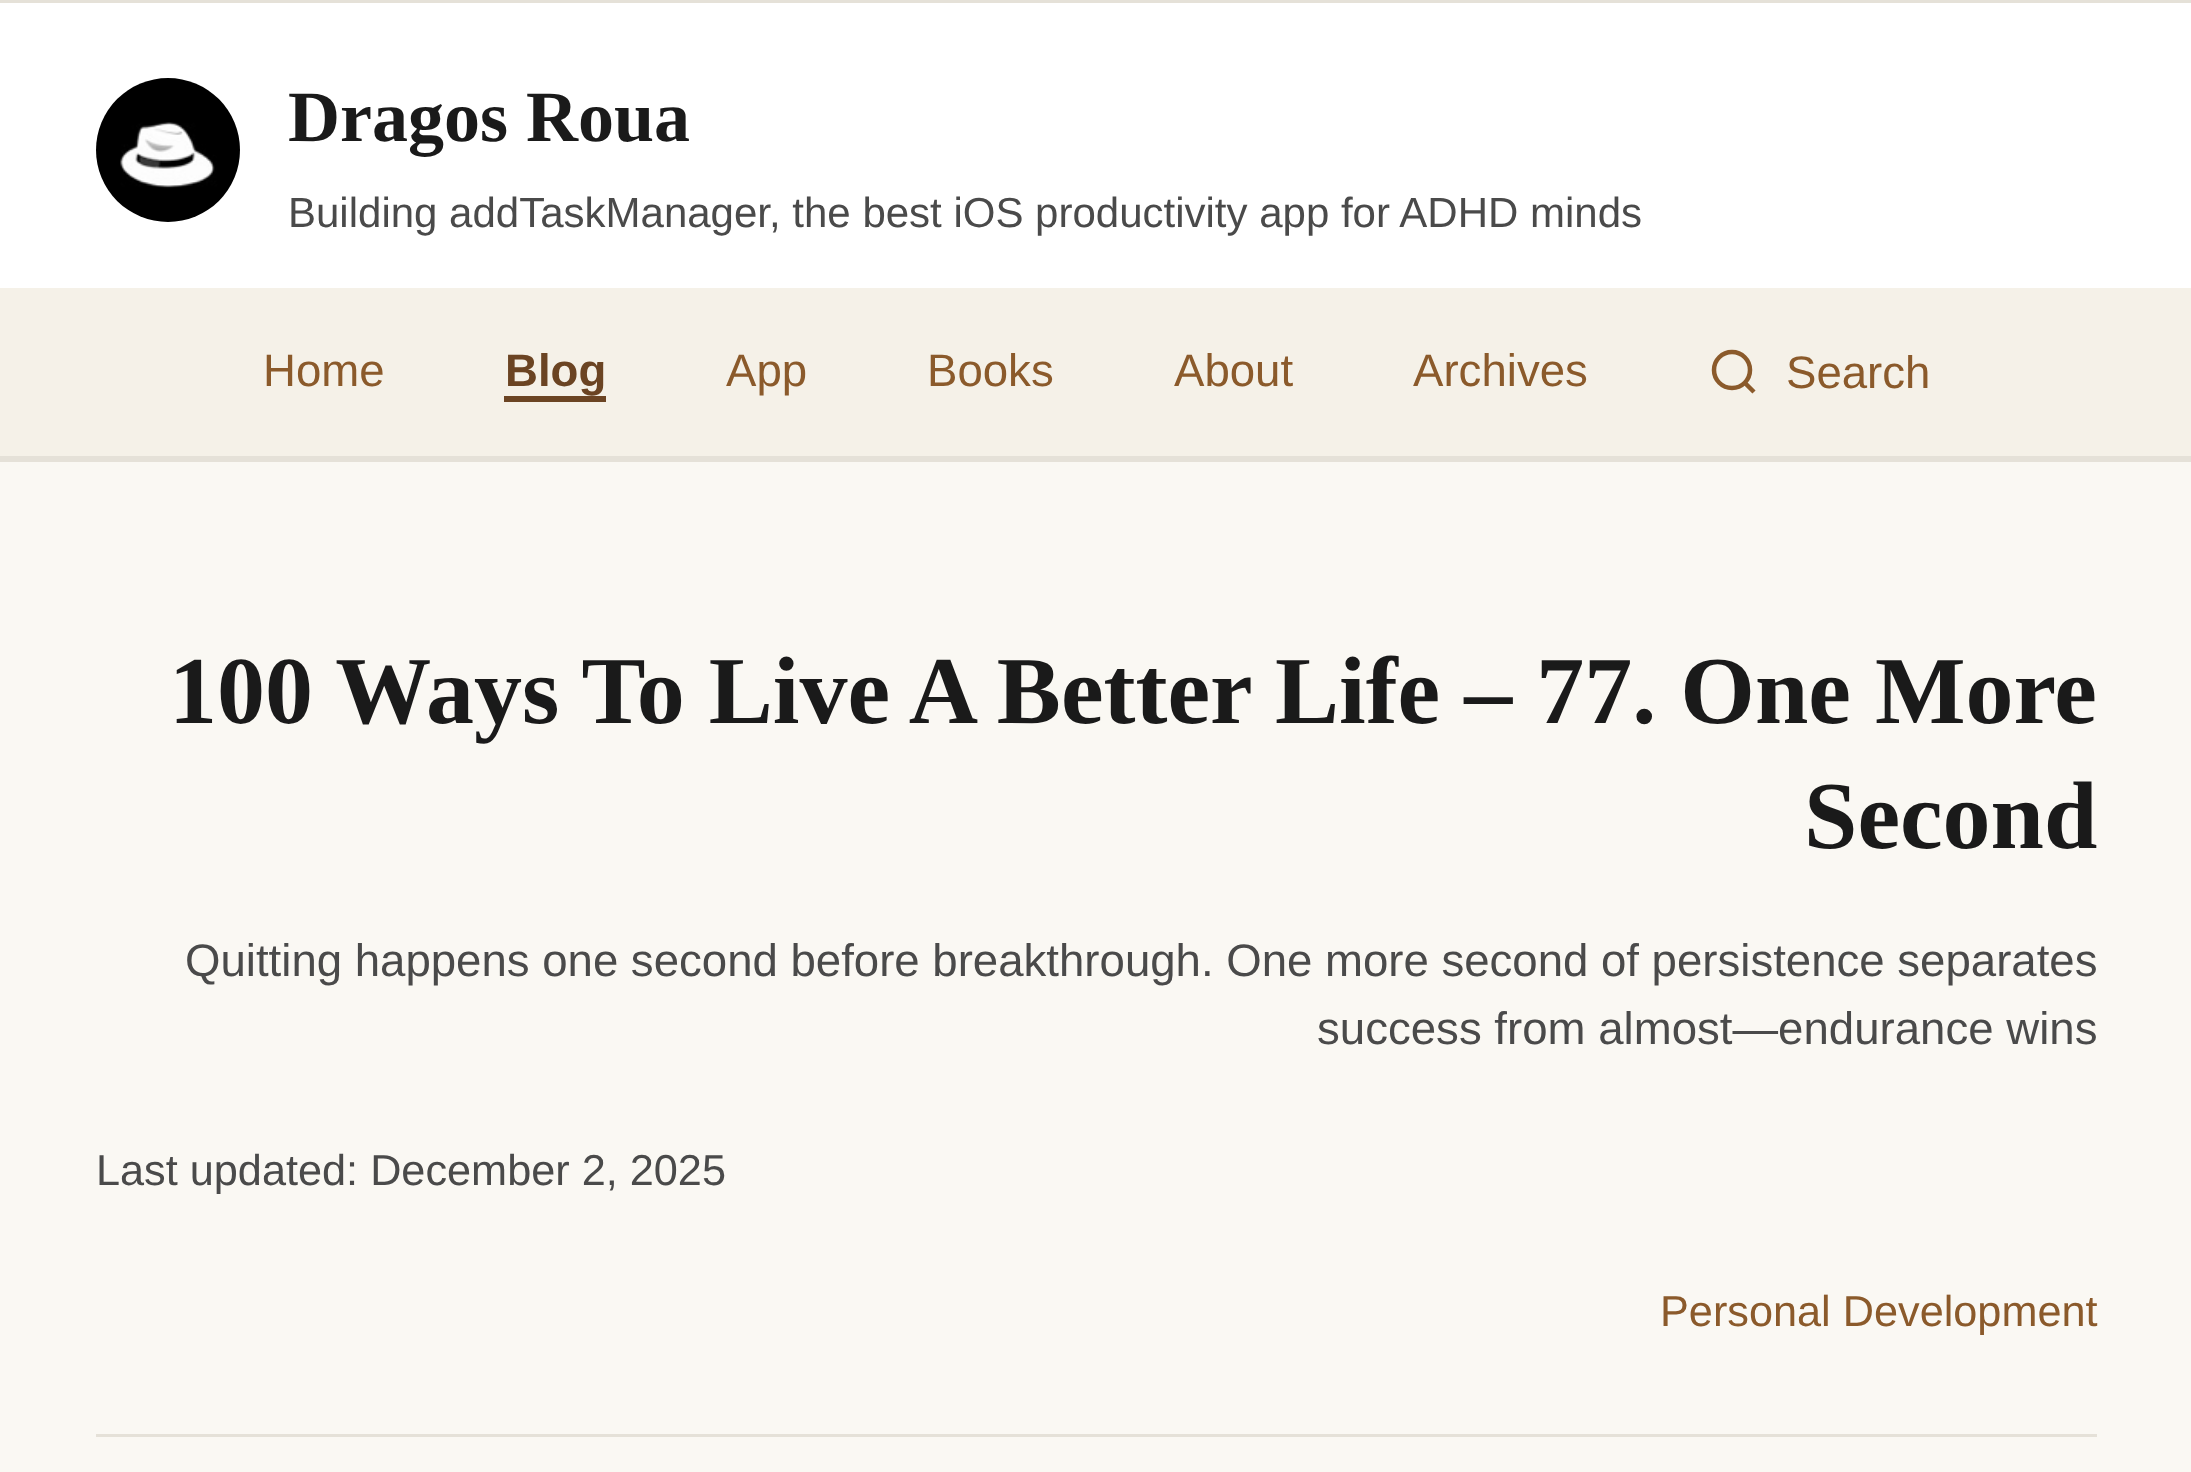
<svg xmlns="http://www.w3.org/2000/svg" width="2191" height="1472">
	<rect width="100%" height="100%" fill="#FAF8F3" />
	<rect x="0" y="0" width="2191" height="3" fill="#E5E1D8" />
	<rect x="0" y="3" width="2191" height="285" fill="#FFFFFF" />
	<rect x="0" y="456" width="2191" height="6" fill="#E5E1D8" />
	<image x="96" y="78" width="144" height="144" href="assets/img1.png" />
	<text x="288" y="141" font-family="Liberation Serif" font-size="72" font-weight="700" fill="#1A1A1A">Dragos Roua</text>
	<text x="288" y="227" font-family="Liberation Sans" font-size="42" fill="#4A4A4A">Building addTaskManager, the best iOS productivity app for ADHD minds</text>
	<rect x="0" y="288" width="2191" height="168" fill="#F5F1E8" />
	<text x="263" y="386" font-family="Liberation Sans" font-size="45.6" fill="#8B5A2B">Home</text>
	<text x="505" y="386" font-family="Liberation Sans" font-size="45.6" font-weight="700" fill="#6B4423">Blog</text>
	<rect x="504" y="396" width="102" height="6" fill="#6B4423" />
	<g font-family="Liberation Sans" font-size="45.6" fill="#8B5A2B">
		<text x="726" y="386">App</text>
		<text x="927" y="386">Books</text>
		<text x="1174" y="386">About</text>
		<text x="1413" y="386">Archives</text>
	</g>
	<circle cx="1732" cy="370" r="18" fill="none" stroke="#8B5A2B" stroke-width="4.5" />
	<path d="M1754 392L1744.5 382.5" fill="none" stroke="#8B5A2B" stroke-width="4.5" />
	<text x="1786" y="388" font-family="Liberation Sans" font-size="45.6" fill="#8B5A2B">Search</text>
	<rect x="96" y="1434" width="2001" height="3" fill="#E5E1D8" />
	<g font-family="Liberation Serif" font-size="96" font-weight="700" fill="#1A1A1A">
		<text x="169" y="723">100 Ways To Live A Better Life – 77. One More</text>
		<text x="1804" y="848">Second</text>
	</g>
	<g font-family="Liberation Sans" font-size="45.6" fill="#4A4A4A">
		<text x="185" y="976" word-spacing="-0.1">Quitting happens one second before breakthrough. One more second of persistence separates</text>
		<text x="1317" y="1044">success from almost—endurance wins</text>
	</g>
	<text x="96" y="1185" font-family="Liberation Sans" font-size="43.25" fill="#4A4A4A">Last updated: December 2, 2025</text>
	<text x="1660" y="1326" font-family="Liberation Sans" font-size="43.25" fill="#8B5A2B">Personal Development</text>
</svg>
